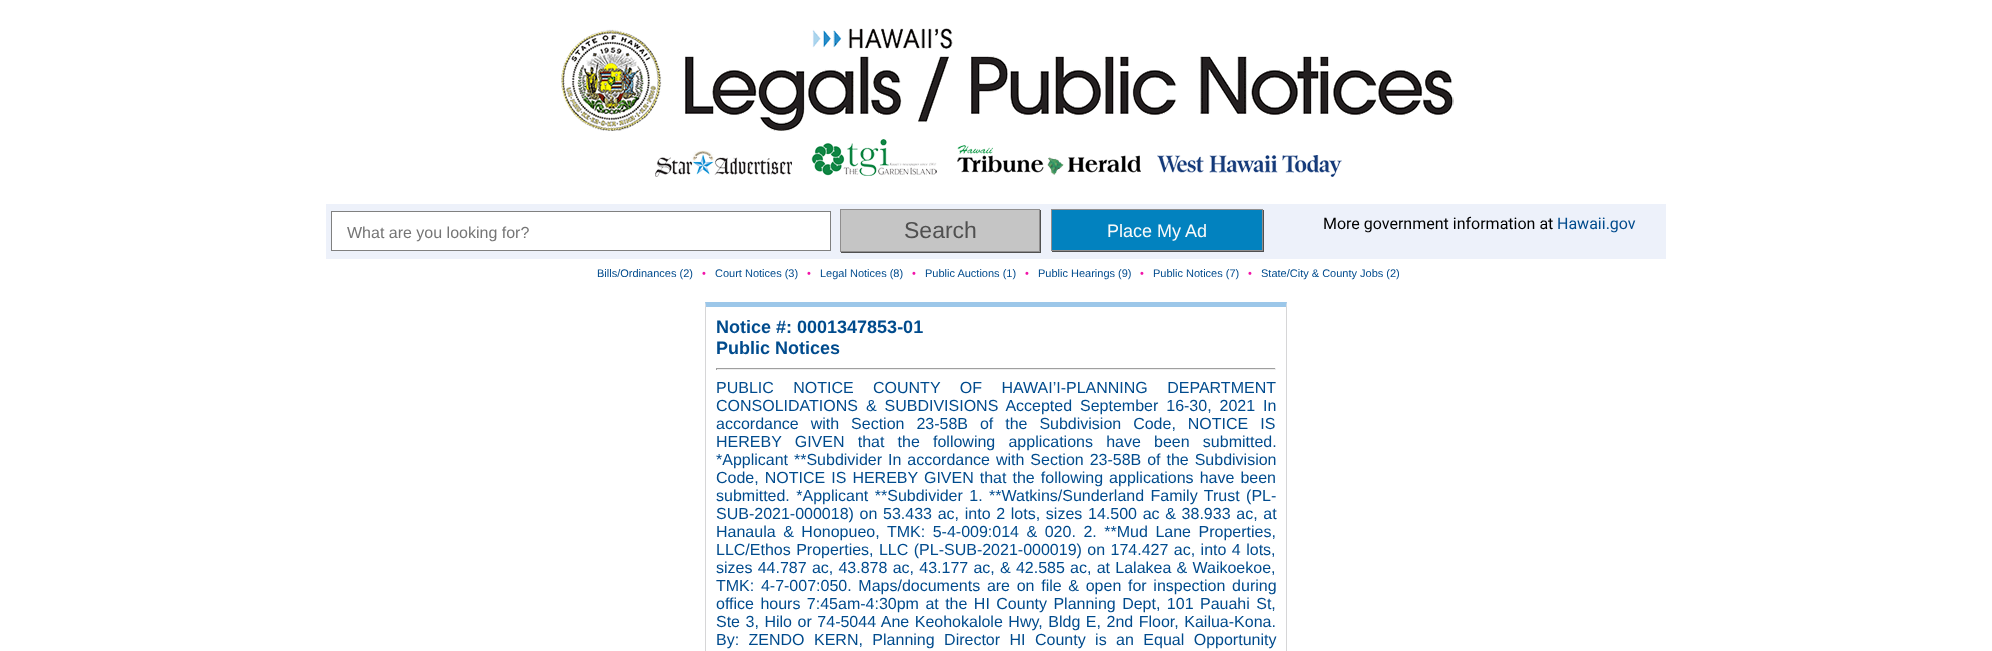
<svg xmlns="http://www.w3.org/2000/svg" width="1992" height="651">
	<rect width="100%" height="100%" fill="#FFFFFF" />
	<image x="561" y="28" width="893" height="103" href="assets/img1.png" />
	<image x="655" y="150" width="137" height="27" href="assets/img2.png" />
	<image x="811" y="139" width="126" height="37" href="assets/img3.png" />
	<image x="957" y="145" width="184" height="30" href="assets/img4.png" />
	<image x="1157" y="155" width="185" height="22" href="assets/img5.png" />
	<rect x="326" y="204" width="1340" height="55" fill="#EDF1FA" />
	<rect x="331.5" y="211.5" width="499" height="39" fill="#FFFFFF" stroke="#808080" />
	<text x="347" y="238" font-family="Liberation Sans" font-size="16" fill="#757575">What are you looking for?</text>
	<rect x="841" y="210" width="200" height="43" fill="#505050" filter="blur(0.5px)" />
	<rect x="840.5" y="209.5" width="199" height="42" fill="#C5C5C5" stroke="#908E8E" />
	<text x="904" y="238" font-family="Liberation Sans" font-size="23" fill="#505050">Search</text>
	<rect x="1052" y="210" width="212" height="42" fill="#505050" filter="blur(0.5px)" />
	<rect x="1051.5" y="209.5" width="211" height="41" fill="#0282BF" stroke="#908E8E" />
	<text x="1107" y="237" font-family="Liberation Sans" font-size="18" fill="#FAFAFA">Place My Ad</text>
	<text x="1323" y="229" font-family="Roboto" font-size="16" fill="#000000">More government information at</text>
	<text x="1557" y="229" font-family="Roboto" font-size="16" fill="#004B8D">Hawaii.gov</text>
	<text x="597" y="277" font-family="Liberation Sans" font-size="11" fill="#004B8D">Bills/Ordinances (2)</text>
	<text x="702" y="277" font-family="Liberation Sans" font-size="11" fill="#F212A8">•</text>
	<text x="715" y="277" font-family="Liberation Sans" font-size="11" fill="#004B8D">Court Notices (3)</text>
	<text x="807" y="277" font-family="Liberation Sans" font-size="11" fill="#F212A8">•</text>
	<text x="820" y="277" font-family="Liberation Sans" font-size="11" fill="#004B8D">Legal Notices (8)</text>
	<text x="912" y="277" font-family="Liberation Sans" font-size="11" fill="#F212A8">•</text>
	<text x="925" y="277" font-family="Liberation Sans" font-size="11" fill="#004B8D">Public Auctions (1)</text>
	<text x="1025" y="277" font-family="Liberation Sans" font-size="11" fill="#F212A8">•</text>
	<text x="1038" y="277" font-family="Liberation Sans" font-size="11" fill="#004B8D">Public Hearings (9)</text>
	<text x="1140" y="277" font-family="Liberation Sans" font-size="11" fill="#F212A8">•</text>
	<text x="1153" y="277" font-family="Liberation Sans" font-size="11" fill="#004B8D">Public Notices (7)</text>
	<text x="1248" y="277" font-family="Liberation Sans" font-size="11" fill="#F212A8">•</text>
	<text x="1261" y="277" font-family="Liberation Sans" font-size="11" fill="#004B8D">State/City &amp; County Jobs (2)</text>
	<path d="M705 302H1287L1286 307H706Z" fill="#9CC7E9" />
	<path d="M1287 302V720L1286 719V307Z" fill="#D6D6D7" />
	<path d="M705 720V302L706 307V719Z" fill="#D6D6D7" />
	<g font-family="Liberation Sans" font-size="18" font-weight="700" fill="#004B8D">
		<text x="716" y="333">Notice #: 0001347853-01</text>
		<text x="716" y="354">Public Notices</text>
	</g>
	<rect x="716" y="368" width="560" height="1" fill="#9F9F9F" />
	<rect x="1275" y="368" width="1" height="2" fill="#EEEEEE" />
	<rect x="716" y="369" width="560" height="1" fill="#EEEEEE" />
	<rect x="716" y="368" width="1" height="2" fill="#9F9F9F" />
	<g font-family="Liberation Sans" font-size="16" fill="#004B8D">
		<text x="716" y="393" word-spacing="15">PUBLIC NOTICE</text>
		<text x="873" y="393" word-spacing="15">COUNTY OF HAWAI’I-PLANNING DEPARTMENT</text>
		<text x="716" y="411" word-spacing="3.5">CONSOLIDATIONS &amp; SUBDIVISIONS Accepted September 16-30, 2021</text>
		<text x="1263" y="411">In</text>
		<text x="716" y="429" word-spacing="7.5">accordance with Section 23-58B of the Subdivision Code, NOTICE IS</text>
		<text x="716" y="447" word-spacing="8.75">HEREBY GIVEN that the following applications have been submitted.</text>
		<text x="716" y="465" word-spacing="1.5">*Applicant **Subdivider In accordance with Section 23-58B of the Subdivision</text>
		<text x="716" y="483" word-spacing="1.6">Code, NOTICE IS HEREBY GIVEN that the following applications have been</text>
		<text x="716" y="501" word-spacing="2">submitted. *Applicant **Subdivider 1. **Watkins/Sunderland Family Trust (PL-</text>
		<text x="716" y="519" word-spacing="1.25">SUB-2021-000018) on 53.433 ac, into 2 lots, sizes 14.500 ac &amp; 38.933 ac, at</text>
		<text x="716" y="537" word-spacing="3.1">Hanaula &amp; Honopueo, TMK: 5-4-009:014 &amp; 020. 2. **Mud Lane Properties,</text>
		<text x="716" y="555" word-spacing="1">LLC/Ethos Properties, LLC (PL-SUB-2021-000019) on 174.427 ac, into 4 lots,</text>
		<text x="716" y="573" word-spacing="0.8">sizes 44.787 ac, 43.878 ac, 43.177 ac, &amp; 42.585 ac, at Lalakea &amp; Waikoekoe,</text>
		<text x="716" y="591" word-spacing="2.25">TMK: 4-7-007:050. Maps/documents are on file &amp; open for inspection during</text>
		<text x="716" y="609" word-spacing="2">office hours 7:45am-4:30pm at the HI County Planning Dept, 101 Pauahi St,</text>
		<text x="716" y="627" word-spacing="1.1">Ste 3, Hilo or 74-5044 Ane Keohokalole Hwy, Bldg E, 2nd Floor, Kailua-Kona.</text>
		<text x="716" y="645" word-spacing="5">By: ZENDO KERN, Planning Director HI County is an Equal Opportunity</text>
	</g>
</svg>
